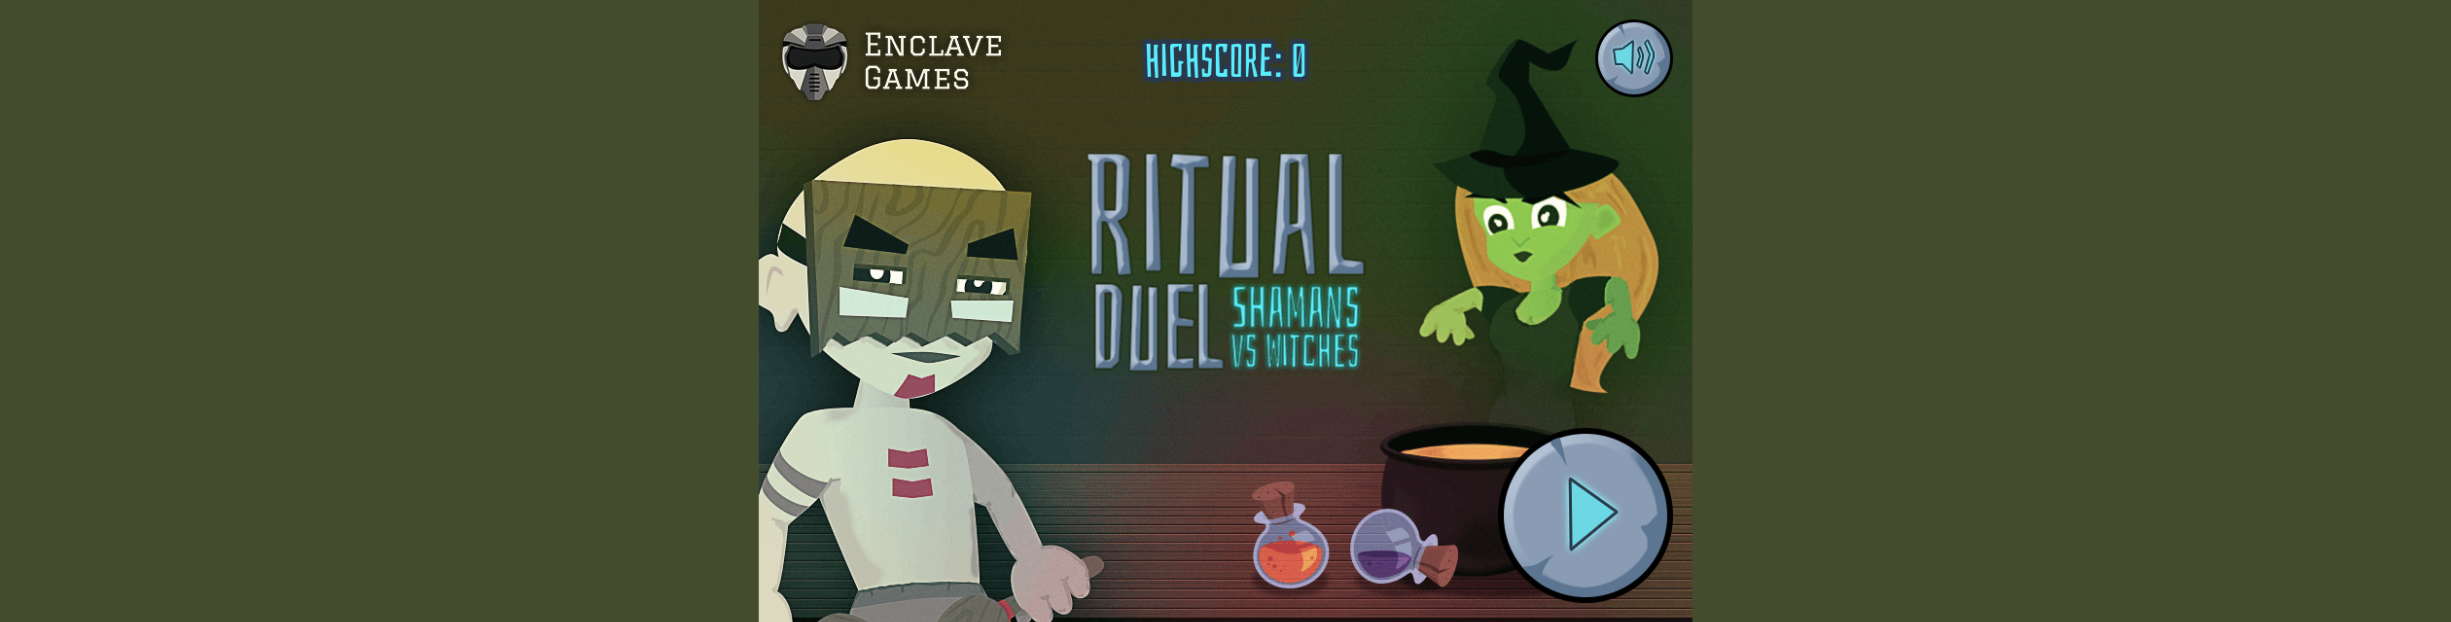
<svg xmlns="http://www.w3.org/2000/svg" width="2451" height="622">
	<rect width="100%" height="100%" fill="#444C2E" />
	<image x="758" y="0" width="935" height="622" href="assets/img1.png" />
</svg>
